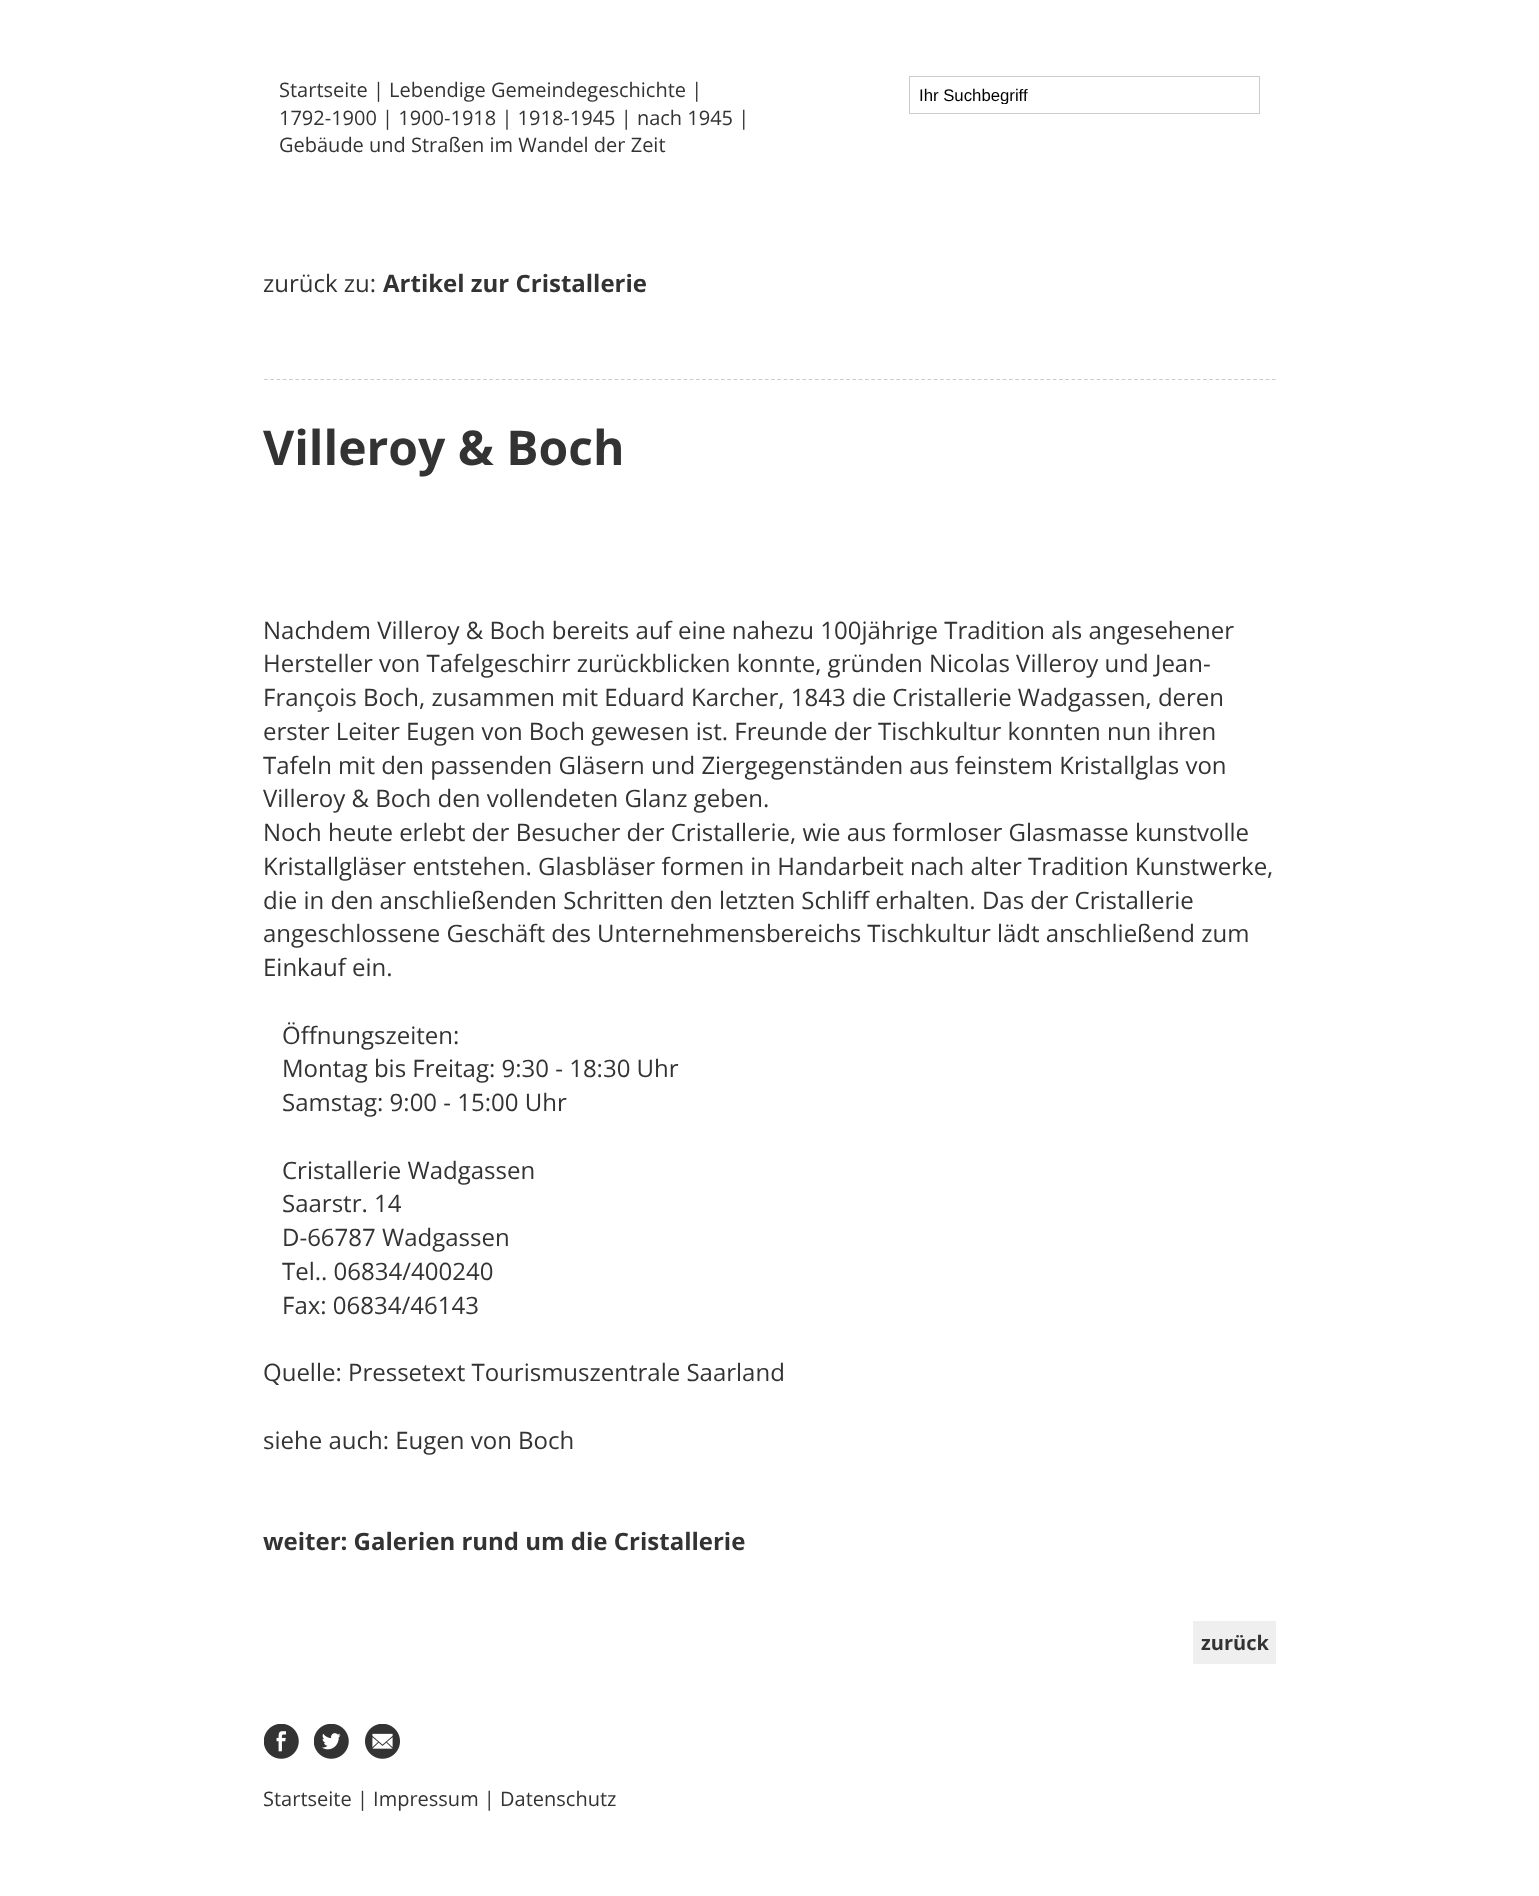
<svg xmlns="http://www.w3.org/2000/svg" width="1539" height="1896">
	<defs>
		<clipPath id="clip1"><rect x="919" y="85" width="332" height="19" /></clipPath>
	</defs>
	<rect width="100%" height="100%" fill="#FFFFFF" />
	<g font-family="Open Sans" font-size="20" fill="#333333">
		<text x="279" y="97">Startseite | Lebendige Gemeindegeschichte |</text>
		<text x="279" y="125">1792-1900 | 1900-1918 | 1918-1945 | nach 1945 |</text>
		<text x="279" y="152">Gebäude und Straßen im Wandel der Zeit</text>
	</g>
	<rect x="909.5" y="76.5" width="350" height="37" fill="none" stroke="#CCCCCC" />
	<g clip-path="url(#clip1)">
		<text x="919" y="101" font-family="Liberation Sans" font-size="16.75" fill="#000000">Ihr Suchbegriff</text>
	</g>
	<text x="263" y="292" font-family="Open Sans" font-size="24" fill="#333333">zurück zu:</text>
	<text x="383" y="292" font-family="Open Sans" font-size="24" font-weight="700" fill="#333333">Artikel zur Cristallerie</text>
	<path d="M264 379.5H1276" fill="none" stroke="#CCCCCC" stroke-width="1.2" stroke-dasharray="3.75 2.51" />
	<text x="263" y="465" font-family="Open Sans" font-size="48" font-weight="700" fill="#333333">Villeroy &amp; Boch</text>
	<g font-family="Open Sans" font-size="24" fill="#333333">
		<text x="263" y="639">Nachdem Villeroy &amp; Boch bereits auf eine nahezu 100jährige Tradition als angesehener</text>
		<text x="263" y="672">Hersteller von Tafelgeschirr zurückblicken konnte, gründen Nicolas Villeroy und Jean-</text>
		<text x="263" y="706">François Boch, zusammen mit Eduard Karcher, 1843 die Cristallerie Wadgassen, deren</text>
		<text x="263" y="740">erster Leiter Eugen von Boch gewesen ist. Freunde der Tischkultur konnten nun ihren</text>
		<text x="263" y="774">Tafeln mit den passenden Gläsern und Ziergegenständen aus feinstem Kristallglas von</text>
		<text x="263" y="807">Villeroy &amp; Boch den vollendeten Glanz geben.</text>
		<text x="263" y="841">Noch heute erlebt der Besucher der Cristallerie, wie aus formloser Glasmasse kunstvolle</text>
		<text x="263" y="875">Kristallgläser entstehen. Glasbläser formen in Handarbeit nach alter Tradition Kunstwerke,</text>
		<text x="263" y="909">die in den anschließenden Schritten den letzten Schliff erhalten. Das der Cristallerie</text>
		<text x="263" y="942">angeschlossene Geschäft des Unternehmensbereichs Tischkultur lädt anschließend zum</text>
		<text x="263" y="976">Einkauf ein.</text>
		<text x="282" y="1044">Öffnungszeiten:</text>
		<text x="282" y="1077">Montag bis Freitag: 9:30 - 18:30 Uhr</text>
		<text x="282" y="1111">Samstag: 9:00 - 15:00 Uhr</text>
		<text x="282" y="1179">Cristallerie Wadgassen</text>
		<text x="282" y="1212">Saarstr. 14</text>
		<text x="282" y="1246">D-66787 Wadgassen</text>
		<text x="282" y="1280">Tel.. 06834/400240</text>
		<text x="282" y="1314">Fax: 06834/46143</text>
		<text x="263" y="1381">Quelle: Pressetext Tourismuszentrale Saarland</text>
		<text x="263" y="1449">siehe auch: Eugen von Boch</text>
	</g>
	<text x="263" y="1550" font-family="Open Sans" font-size="24" font-weight="700" fill="#333333">weiter: Galerien rund um die Cristallerie</text>
	<rect x="1193" y="1621" width="83" height="43" fill="#EFEFEF" />
	<text x="1201" y="1650" font-family="Open Sans" font-size="20" font-weight="700" fill="#333333">zurück</text>
	<image x="264" y="1724" width="35" height="35" href="assets/img1.png" />
	<image x="314" y="1724" width="35" height="35" href="assets/img2.png" />
	<image x="365" y="1724" width="35" height="35" href="assets/img3.png" />
	<text x="263" y="1806" font-family="Open Sans" font-size="20" fill="#333333">Startseite | Impressum | Datenschutz</text>
</svg>
